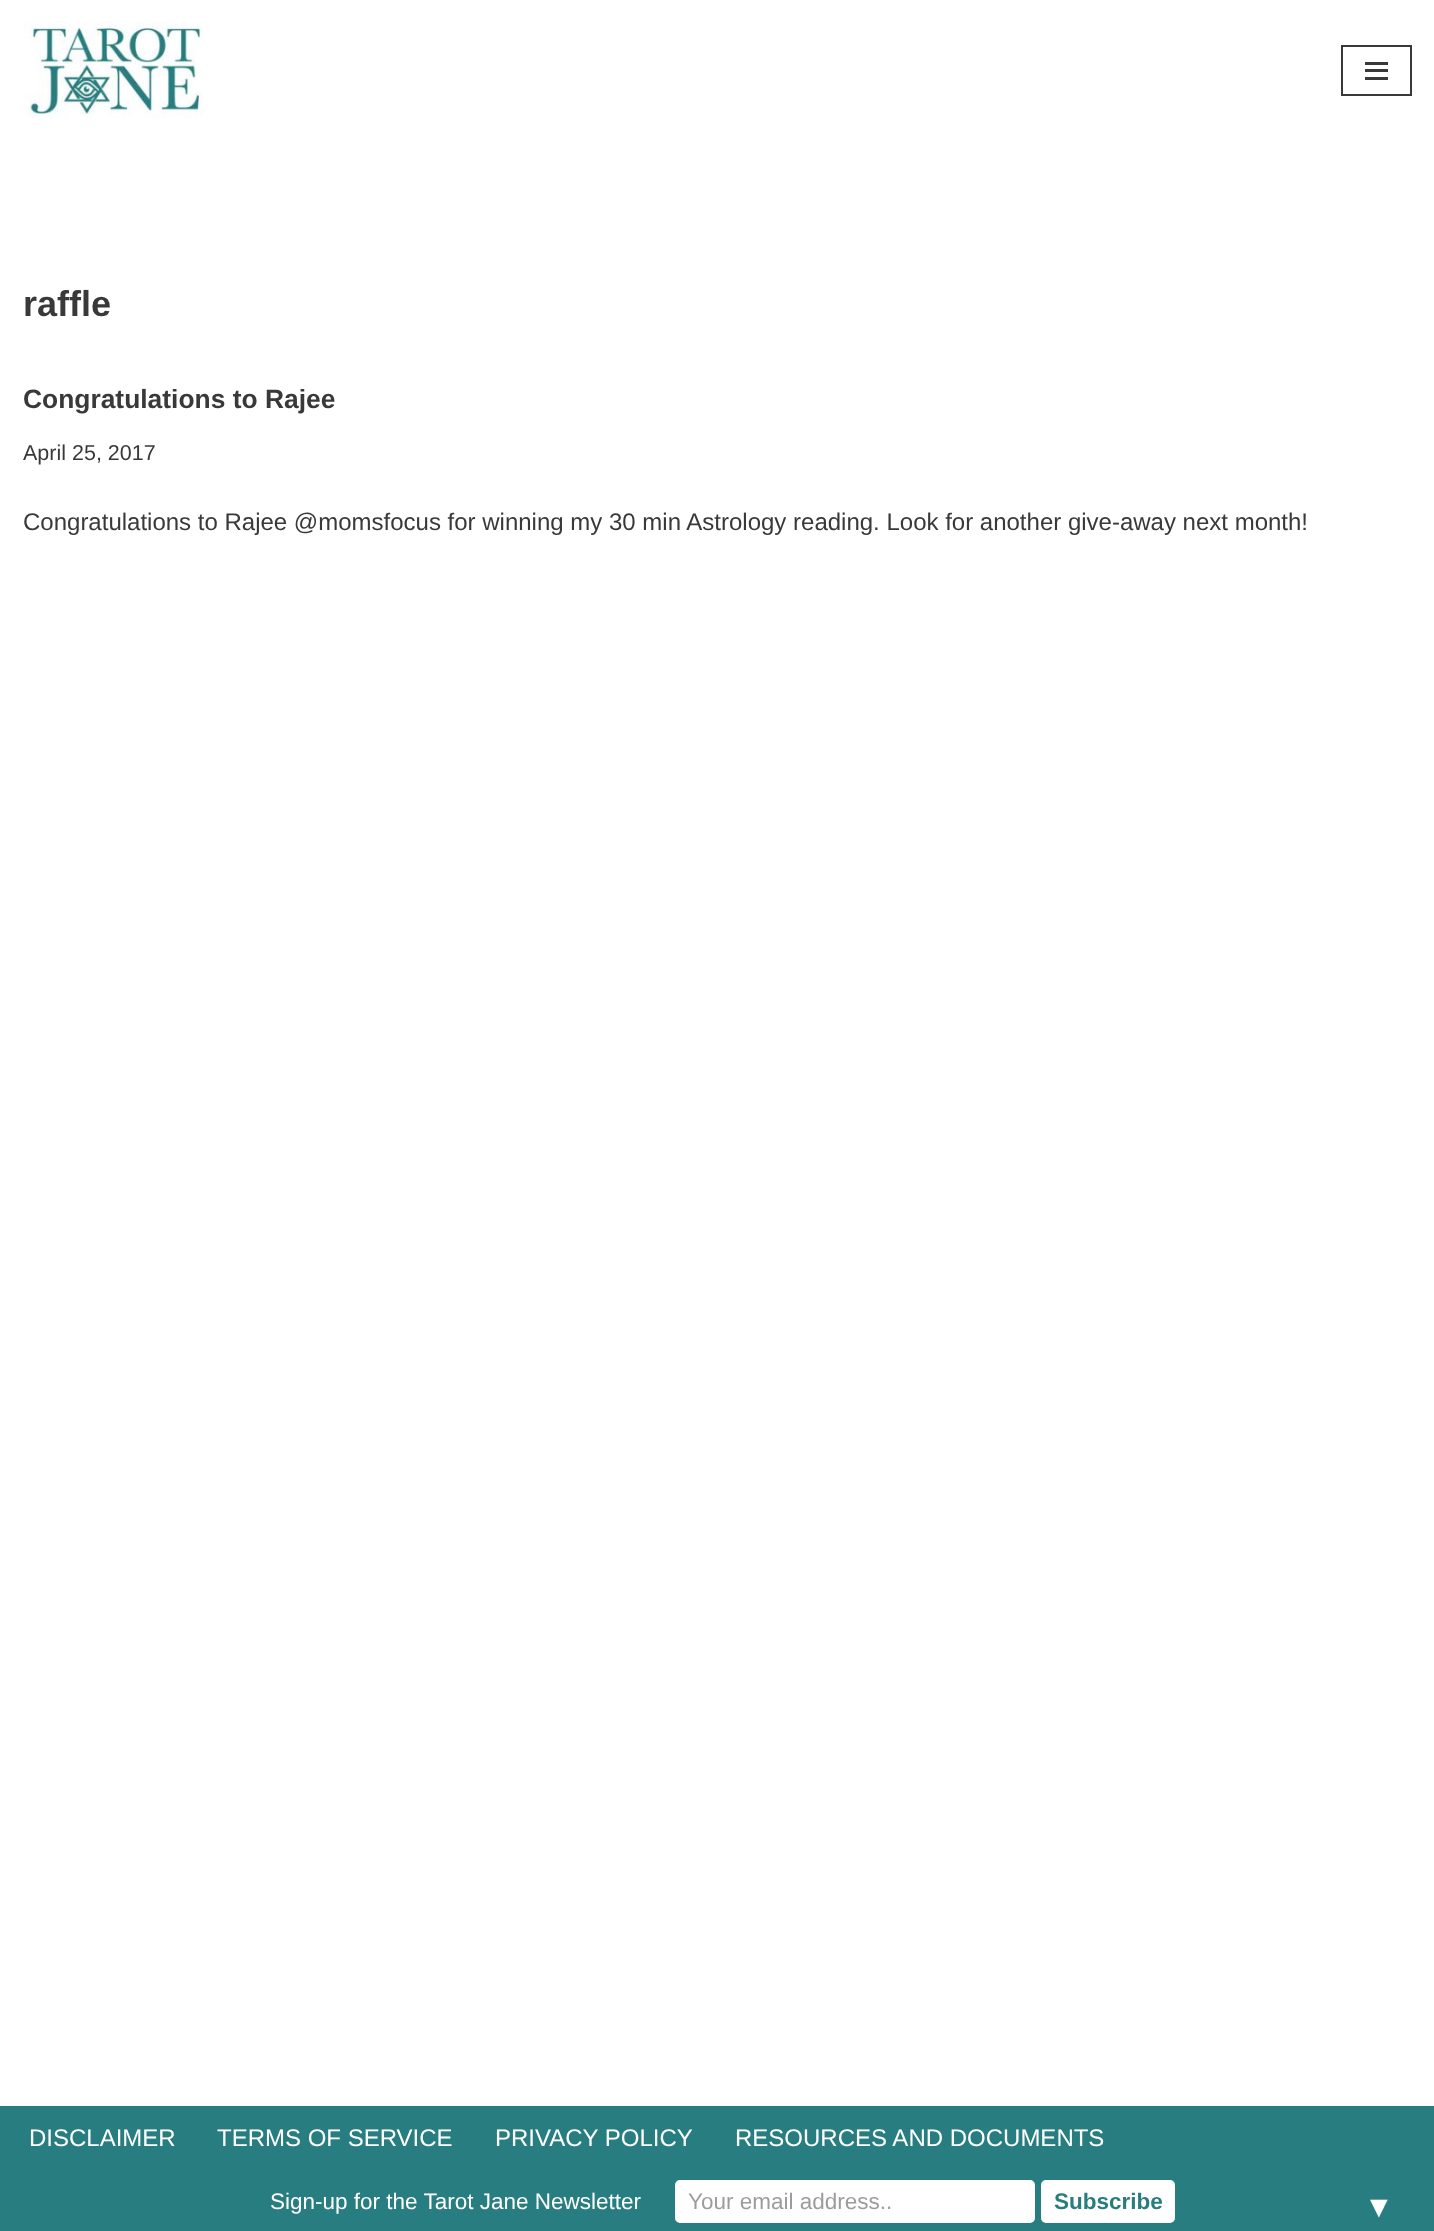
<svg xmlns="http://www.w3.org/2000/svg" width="1434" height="2231">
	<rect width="100%" height="100%" fill="#FFFFFF" />
	<image x="23" y="21" width="180" height="97" href="assets/img1.png" />
	<rect x="1342" y="46" width="69" height="49" fill="none" stroke="#393939" stroke-width="2" />
	<rect x="1365" y="62" width="23" height="3" fill="#393939" />
	<rect x="1365" y="69" width="23" height="3" fill="#393939" />
	<rect x="1365" y="77" width="23" height="3" fill="#393939" />
	<text x="23" y="316" font-family="Liberation Sans" font-size="36" font-weight="700" fill="#393939">raffle</text>
	<text x="23" y="408" font-family="Liberation Sans" font-size="26.4" font-weight="700" fill="#393939">Congratulations to Rajee</text>
	<text x="23" y="460" font-family="Liberation Sans" font-size="21.5" fill="#393939">April 25, 2017</text>
	<text x="23" y="530" font-family="Liberation Sans" font-size="24" fill="#393939">Congratulations to Rajee @momsfocus for winning my 30 min Astrology reading. Look for another give-away next month!</text>
	<rect x="0" y="2106" width="1434" height="125" fill="#277D7F" />
	<g font-family="Liberation Sans" font-size="24" fill="#FFFFFF">
		<text x="29" y="2146">DISCLAIMER</text>
		<text x="217" y="2146">TERMS OF SERVICE</text>
		<text x="495" y="2146">PRIVACY POLICY</text>
		<text x="735" y="2146">RESOURCES AND DOCUMENTS</text>
	</g>
	<text x="270" y="2209" font-family="Liberation Sans" font-size="22.5" fill="#FFFFFF">Sign-up for the Tarot Jane Newsletter</text>
	<rect x="676" y="2181" width="358" height="41" rx="4" fill="#FFFFFF" stroke="#FFFFFF" stroke-width="2" />
	<text x="688" y="2209" font-family="Liberation Sans" font-size="22.5" fill="#9C9C9C">Your email address..</text>
	<rect x="1042" y="2181" width="132" height="41" rx="4" fill="#FFFFFF" stroke="#FFFFFF" stroke-width="2" />
	<text x="1054" y="2209" font-family="Liberation Sans" font-size="22.5" font-weight="700" fill="#277D7F">Subscribe</text>
	<text x="1364" y="2217" font-family="Liberation Sans" font-size="30" fill="#FFFFFF">▼</text>
</svg>
